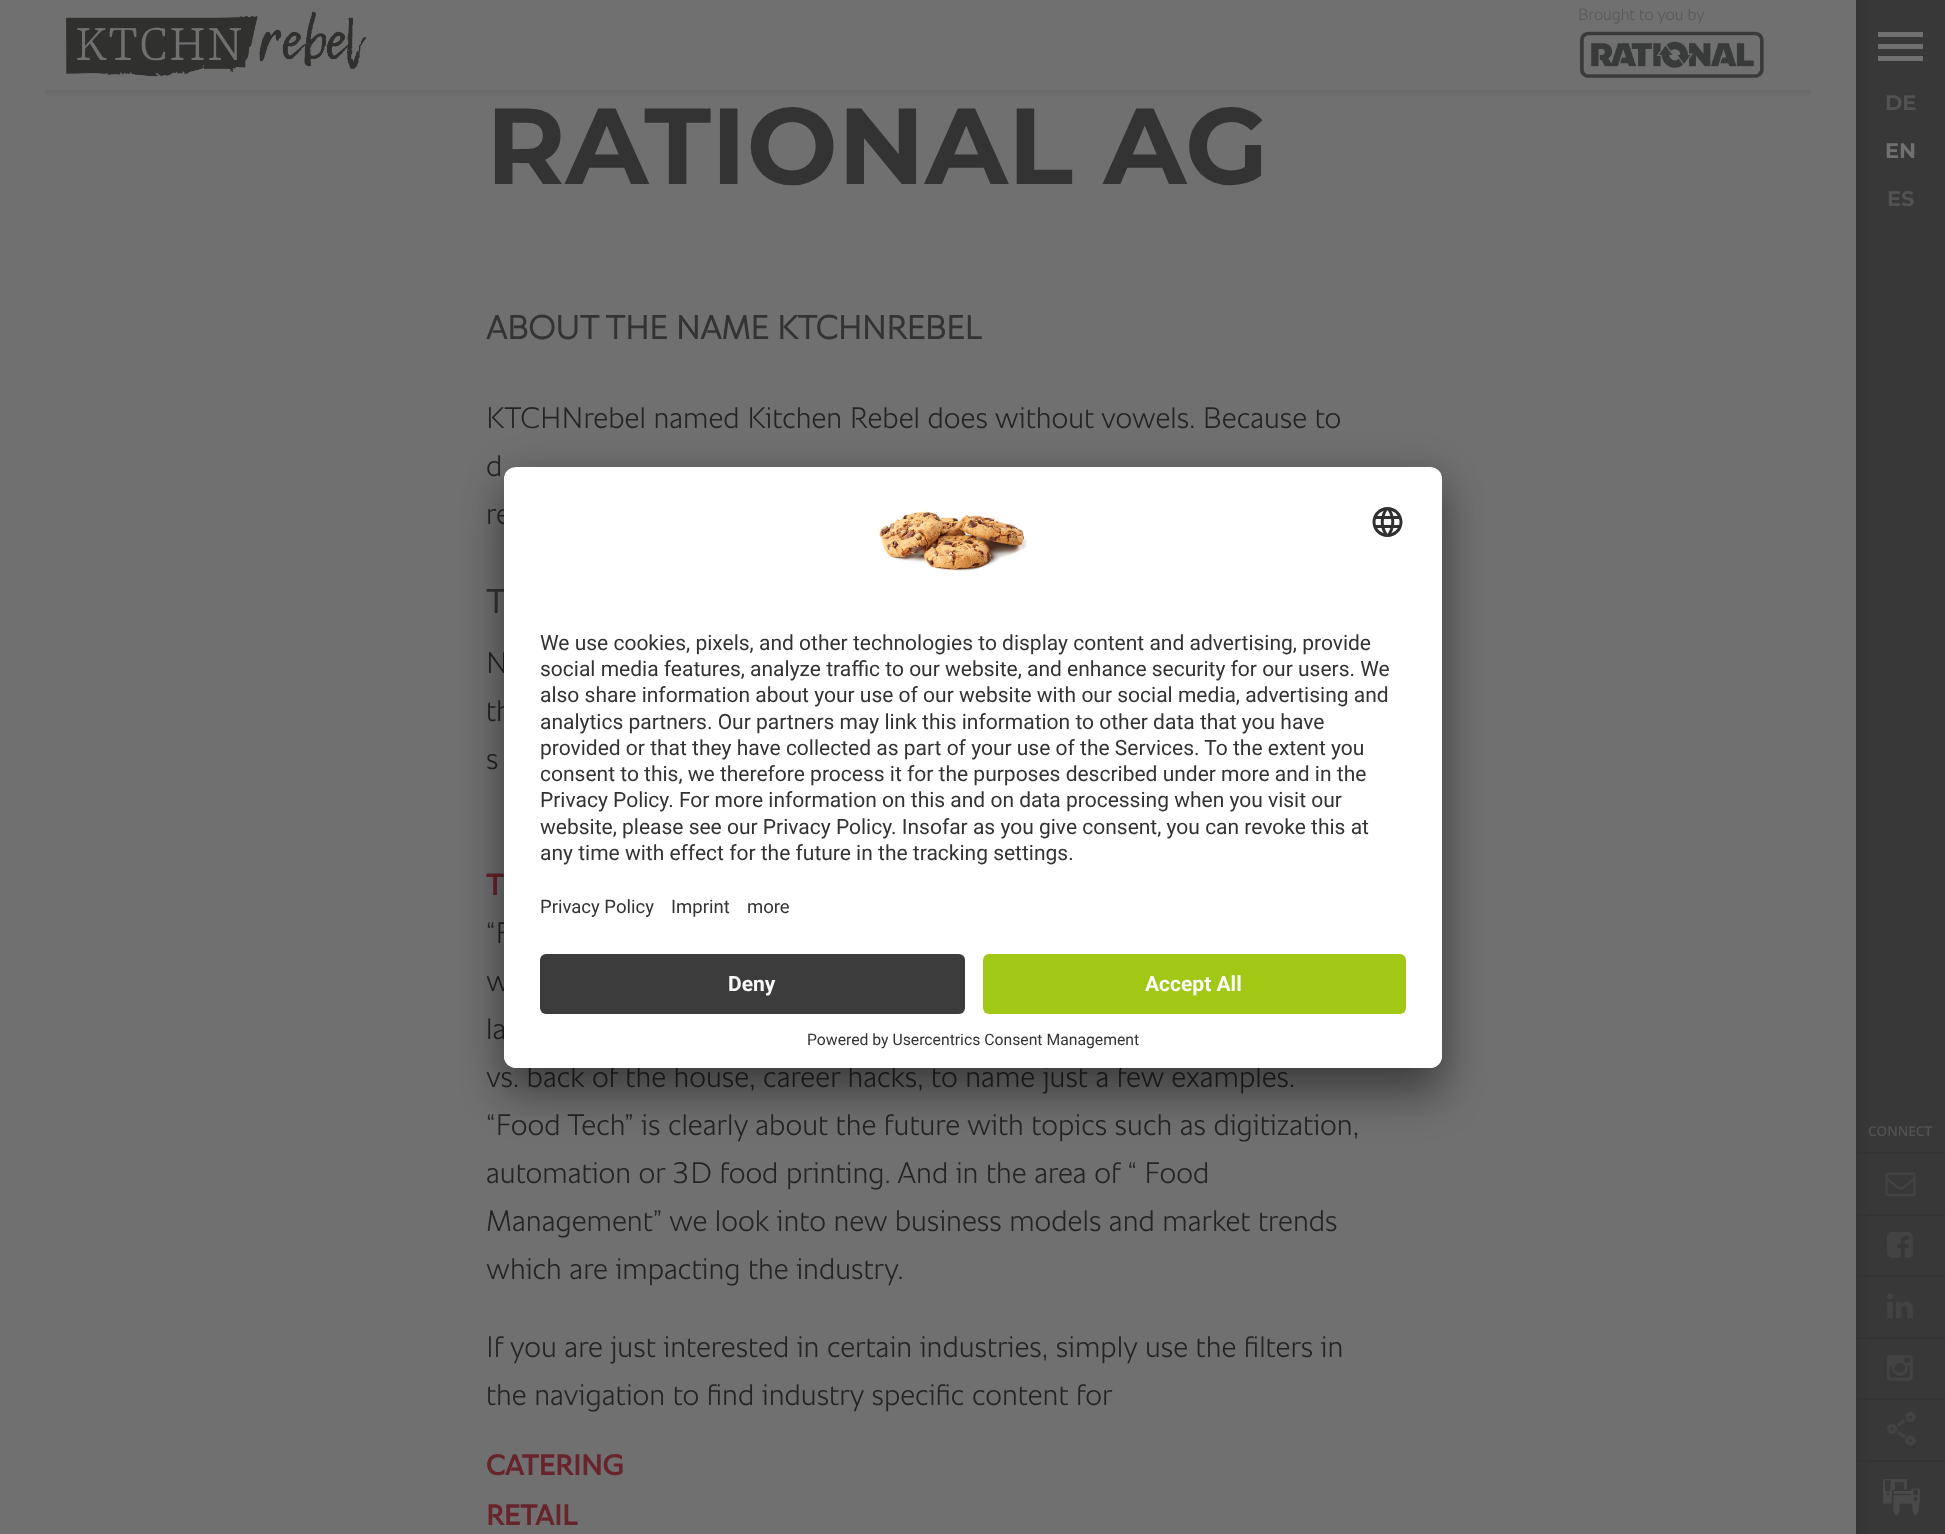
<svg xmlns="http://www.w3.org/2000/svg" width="1945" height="1534">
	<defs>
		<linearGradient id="g1" gradientUnits="userSpaceOnUse" x1="928" y1="105" x2="928" y2="90"><stop offset="0.2" stop-color="#707070" /><stop offset="0.7" stop-color="#6D6D6D" /><stop offset="1" stop-color="#696969" /></linearGradient>
		<linearGradient id="g2" gradientUnits="userSpaceOnUse" x1="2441" y1="767" x2="1856" y2="767"><stop offset="0.97" stop-color="#383838" /><stop offset="0.99" stop-color="#363636" /><stop offset="1" stop-color="#343434" /></linearGradient>
		<clipPath id="clip1"><rect x="504" y="467" width="938" height="601" rx="12" /></clipPath>
		<clipPath id="clip2"><path d="M516 467H1430C1436.5 467 1442 472.5 1442 479V942H504V479C504 472.5 509.5 467 516 467Z" /></clipPath>
	</defs>
	<rect width="100%" height="100%" fill="#707070" />
	<image x="66" y="11" width="300" height="66" href="assets/img1.png" />
	<text x="1578" y="20" font-family="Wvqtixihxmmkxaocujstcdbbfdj" font-size="16.5" font-weight="300" fill="#595959">Brought to you by</text>
	<image x="1579" y="31" width="185" height="48" href="assets/img2.png" />
	<rect x="45" y="90" width="1766" height="6" fill="url(#g1)" />
	<text x="486" y="184" font-family="Montserrat" font-size="108" font-weight="700" fill="#333333">RATIONAL AG</text>
	<text x="486" y="339" font-family="Wvqtixihxmmkxaocujstcdbbfdj" font-size="33.6" font-weight="700" fill="#333333">ABOUT THE NAME KTCHNREBEL</text>
	<g font-family="Wvqtixihxmmkxaocujstcdbbfdj" font-size="30" font-weight="300" fill="#242424">
		<text x="486" y="428">KTCHNrebel named Kitchen Rebel does without vowels. Because to</text>
		<text x="486" y="476">d</text>
		<text x="486" y="524">re</text>
	</g>
	<text x="486" y="613" font-family="Wvqtixihxmmkxaocujstcdbbfdj" font-size="33.6" font-weight="700" fill="#333333">T</text>
	<g font-family="Wvqtixihxmmkxaocujstcdbbfdj" font-size="30" font-weight="300" fill="#242424">
		<text x="486" y="673">N</text>
		<text x="486" y="721">th</text>
		<text x="486" y="769">s</text>
	</g>
	<text x="486" y="895" font-family="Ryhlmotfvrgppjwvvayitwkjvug" font-size="30" font-weight="700" fill="#67242B">T</text>
	<g font-family="Wvqtixihxmmkxaocujstcdbbfdj" font-size="30" font-weight="300" fill="#242424">
		<text x="486" y="943">“F</text>
		<text x="486" y="991">w</text>
		<text x="486" y="1039">la</text>
		<text x="486" y="1087">vs. back of the house, career hacks, to name just a few examples.</text>
		<text x="486" y="1135">“Food Tech” is clearly about the future with topics such as digitization,</text>
		<text x="486" y="1183">automation or 3D food printing. And in the area of “ Food</text>
		<text x="486" y="1231">Management” we look into new business models and market trends</text>
		<text x="486" y="1279">which are impacting the industry.</text>
		<text x="486" y="1357">If you are just interested in certain industries, simply use the filters in</text>
		<text x="486" y="1405">the navigation to find industry specific content for</text>
	</g>
	<g font-family="Ryhlmotfvrgppjwvvayitwkjvug" font-size="29" font-weight="700" fill="#67242B">
		<text x="486" y="1475">CATERING</text>
		<text x="486" y="1525">RETAIL</text>
	</g>
	<rect x="1856" y="0" width="89" height="1534" fill="url(#g2)" />
	<rect x="1878" y="32" width="45" height="5" fill="#707070" />
	<rect x="1878" y="44" width="45" height="5" fill="#707070" />
	<rect x="1878" y="56" width="45" height="5" fill="#707070" />
	<text x="1885" y="110" font-family="Montserrat" font-size="21" font-weight="700" fill="#525252">DE</text>
	<text x="1885" y="158" font-family="Montserrat" font-size="21" font-weight="700" fill="#707070">EN</text>
	<text x="1887" y="206" font-family="Montserrat" font-size="21" font-weight="700" fill="#525252">ES</text>
	<text x="1868" y="1136" font-family="Open Sans" font-size="13.5" font-weight="600" fill="#525252">CONNECT</text>
	<rect x="1856" y="1152" width="89" height="2" fill="#333333" />
	<image x="1885" y="1172" width="31" height="25" href="assets/img3.png" />
	<rect x="1856" y="1214" width="89" height="2" fill="#333333" />
	<image x="1887" y="1232" width="26" height="26" href="assets/img4.png" />
	<rect x="1856" y="1275" width="89" height="2" fill="#333333" />
	<image x="1887" y="1293" width="26" height="26" href="assets/img5.png" />
	<rect x="1856" y="1337" width="89" height="2" fill="#333333" />
	<image x="1887" y="1355" width="26" height="26" href="assets/img6.png" />
	<rect x="1856" y="1398" width="89" height="2" fill="#333333" />
	<image x="1887" y="1411" width="29" height="35" href="assets/img7.png" />
	<rect x="1856" y="1460" width="89" height="2" fill="#333333" />
	<image x="1883" y="1479" width="37" height="37" href="assets/img8.png" />
	<rect x="504" y="497" width="938" height="601" rx="12" fill="#000000" fill-opacity="0.3" filter="blur(21px)" />
	<rect x="504" y="474" width="938" height="602" rx="12" fill="#000000" fill-opacity="0.22" filter="blur(19.5px)" />
	<rect x="504" y="467" width="938" height="601" rx="12" fill="#FFFFFF" />
	<g clip-path="url(#clip1)">
		<g clip-path="url(#clip2)">
			<rect x="504" y="468" width="938" height="474" fill="#FFFFFF" />
		</g>
	</g>
	<image x="877" y="508" width="151" height="63" href="assets/img9.png" />
	<image x="1372" y="507" width="31" height="30" href="assets/img10.png" />
	<g font-family="Roboto" font-size="21" fill="#333333">
		<text x="540" y="650">We use cookies, pixels, and other technologies to display content and advertising, provide</text>
		<text x="540" y="676">social media features, analyze traffic to our website, and enhance security for our users. We</text>
		<text x="540" y="702">also share information about your use of our website with our social media, advertising and</text>
		<text x="540" y="729">analytics partners. Our partners may link this information to other data that you have</text>
		<text x="540" y="755">provided or that they have collected as part of your use of the Services. To the extent you</text>
		<text x="540" y="781">consent to this, we therefore process it for the purposes described under more and in the</text>
		<text x="540" y="807">Privacy Policy. For more information on this and on data processing when you visit our</text>
		<text x="540" y="834">website, please see our Privacy Policy. Insofar as you give consent, you can revoke this at</text>
		<text x="540" y="860">any time with effect for the future in the tracking settings.</text>
	</g>
	<g font-family="Roboto" font-size="18.5" fill="#333333">
		<text x="540" y="913">Privacy Policy</text>
		<text x="671" y="913">Imprint</text>
		<text x="747" y="913">more</text>
	</g>
	<path d="M504 942H1442V1056C1442 1062.5 1436.5 1068 1430 1068H516C509.5 1068 504 1062.5 504 1056Z" fill="#FFFFFF" />
	<rect x="540" y="954" width="425" height="60" rx="6" fill="#3C3C3C" />
	<text x="728" y="991" font-family="Roboto" font-size="21" font-weight="700" fill="#FAFAFA">Deny</text>
	<rect x="983" y="954" width="423" height="60" rx="6" fill="#A0C814" />
	<text x="1145" y="991" font-family="Roboto" font-size="21" font-weight="700" fill="#FAFAFA">Accept All</text>
	<text x="807" y="1045" font-family="Roboto" font-size="15.75" fill="#333333">Powered by Usercentrics Consent Management</text>
</svg>
